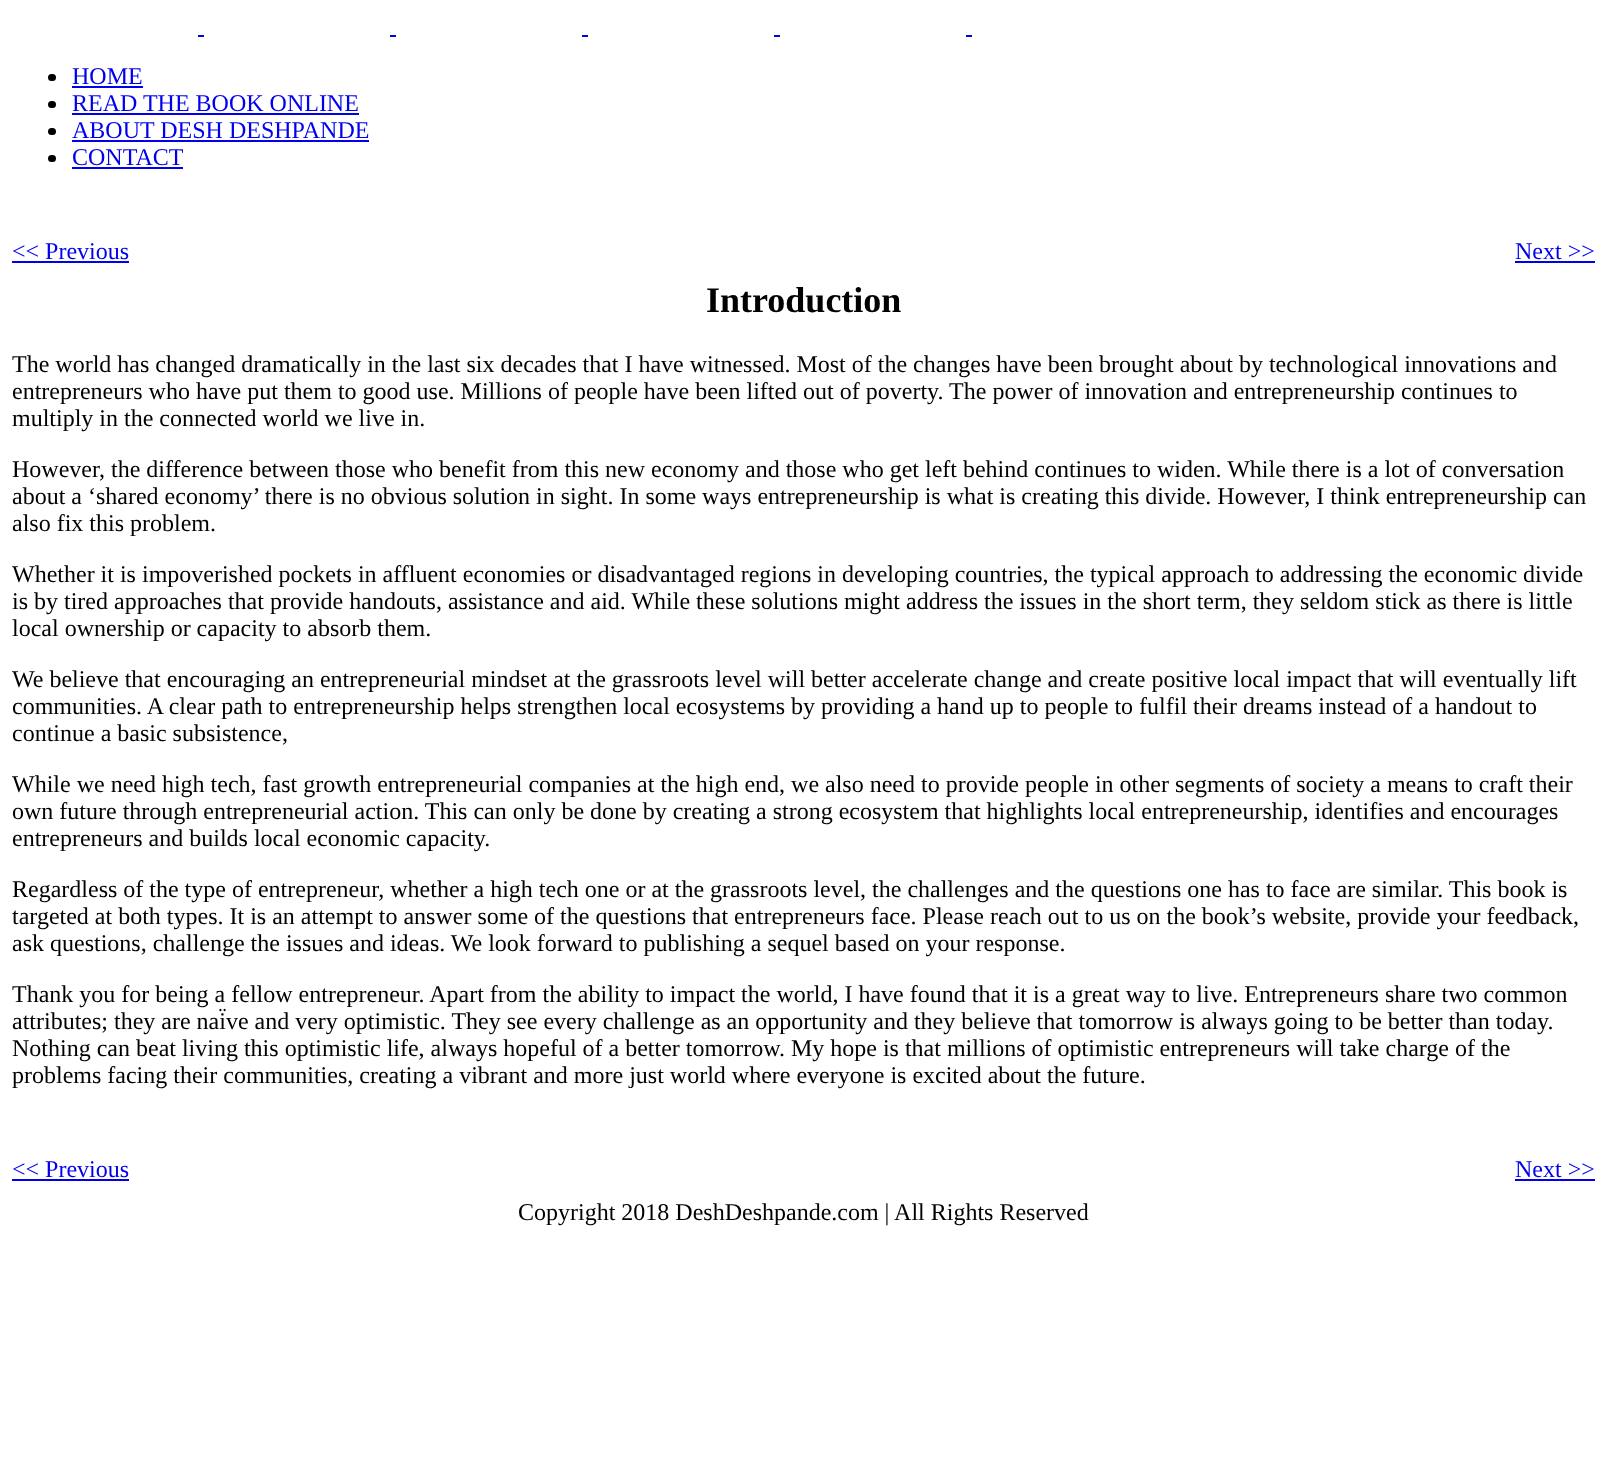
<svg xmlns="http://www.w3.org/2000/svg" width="1606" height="1461">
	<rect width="100%" height="100%" fill="#FFFFFF" />
	<rect x="198" y="35" width="6" height="2" fill="#0000EE" />
	<rect x="390" y="35" width="6" height="2" fill="#0000EE" />
	<rect x="582" y="35" width="6" height="2" fill="#0000EE" />
	<rect x="774" y="35" width="6" height="2" fill="#0000EE" />
	<rect x="966" y="35" width="6" height="2" fill="#0000EE" />
	<rect x="48" y="74" width="8" height="7" rx="3.5" fill="#000000" />
	<text x="72" y="84" font-family="Liberation Serif" font-size="24" fill="#0000EE">HOME</text>
	<rect x="72" y="86" width="71" height="2" fill="#0000EE" />
	<rect x="48" y="101" width="8" height="7" rx="3.5" fill="#000000" />
	<text x="72" y="111" font-family="Liberation Serif" font-size="24" fill="#0000EE">READ THE BOOK ONLINE</text>
	<rect x="72" y="113" width="287" height="2" fill="#0000EE" />
	<rect x="48" y="128" width="8" height="7" rx="3.5" fill="#000000" />
	<text x="72" y="138" font-family="Liberation Serif" font-size="24" fill="#0000EE">ABOUT DESH DESHPANDE</text>
	<rect x="72" y="140" width="297" height="2" fill="#0000EE" />
	<rect x="48" y="155" width="8" height="7" rx="3.5" fill="#000000" />
	<text x="72" y="165" font-family="Liberation Serif" font-size="24" fill="#0000EE">CONTACT</text>
	<rect x="72" y="167" width="111" height="2" fill="#0000EE" />
	<text x="12" y="259" font-family="Liberation Serif" font-size="24" fill="#0000EE">&lt;&lt; Previous</text>
	<rect x="12" y="261" width="117" height="2" fill="#0000EE" />
	<text x="1515" y="259" font-family="Liberation Serif" font-size="24" fill="#0000EE">Next &gt;&gt;</text>
	<rect x="1515" y="261" width="80" height="2" fill="#0000EE" />
	<text x="706" y="312" font-family="Liberation Serif" font-size="36" font-weight="700" fill="#000000">Introduction</text>
	<g font-family="Liberation Serif" font-size="24" fill="#000000">
		<text x="12" y="372">The world has changed dramatically in the last six decades that I have witnessed. Most of the changes have been brought about by technological innovations and</text>
		<text x="12" y="399">entrepreneurs who have put them to good use. Millions of people have been lifted out of poverty. The power of innovation and entrepreneurship continues to</text>
		<text x="12" y="426">multiply in the connected world we live in.</text>
		<text x="12" y="477">However, the difference between those who benefit from this new economy and those who get left behind continues to widen. While there is a lot of conversation</text>
		<text x="12" y="504">about a ‘shared economy’ there is no obvious solution in sight. In some ways entrepreneurship is what is creating this divide. However, I think entrepreneurship can</text>
		<text x="12" y="531">also fix this problem.</text>
		<text x="12" y="582">Whether it is impoverished pockets in affluent economies or disadvantaged regions in developing countries, the typical approach to addressing the economic divide</text>
		<text x="12" y="609">is by tired approaches that provide handouts, assistance and aid. While these solutions might address the issues in the short term, they seldom stick as there is little</text>
		<text x="12" y="636">local ownership or capacity to absorb them.</text>
		<text x="12" y="687">We believe that encouraging an entrepreneurial mindset at the grassroots level will better accelerate change and create positive local impact that will eventually lift</text>
		<text x="12" y="714">communities. A clear path to entrepreneurship helps strengthen local ecosystems by providing a hand up to people to fulfil their dreams instead of a handout to</text>
		<text x="12" y="741">continue a basic subsistence,</text>
		<text x="12" y="792">While we need high tech, fast growth entrepreneurial companies at the high end, we also need to provide people in other segments of society a means to craft their</text>
		<text x="12" y="819">own future through entrepreneurial action. This can only be done by creating a strong ecosystem that highlights local entrepreneurship, identifies and encourages</text>
		<text x="12" y="846">entrepreneurs and builds local economic capacity.</text>
		<text x="12" y="897">Regardless of the type of entrepreneur, whether a high tech one or at the grassroots level, the challenges and the questions one has to face are similar. This book is</text>
		<text x="12" y="924">targeted at both types. It is an attempt to answer some of the questions that entrepreneurs face. Please reach out to us on the book’s website, provide your feedback,</text>
		<text x="12" y="951">ask questions, challenge the issues and ideas. We look forward to publishing a sequel based on your response.</text>
		<text x="12" y="1002">Thank you for being a fellow entrepreneur. Apart from the ability to impact the world, I have found that it is a great way to live. Entrepreneurs share two common</text>
		<text x="12" y="1029">attributes; they are naïve and very optimistic. They see every challenge as an opportunity and they believe that tomorrow is always going to be better than today.</text>
		<text x="12" y="1056">Nothing can beat living this optimistic life, always hopeful of a better tomorrow. My hope is that millions of optimistic entrepreneurs will take charge of the</text>
		<text x="12" y="1083">problems facing their communities, creating a vibrant and more just world where everyone is excited about the future.</text>
	</g>
	<text x="12" y="1177" font-family="Liberation Serif" font-size="24" fill="#0000EE">&lt;&lt; Previous</text>
	<rect x="12" y="1179" width="117" height="2" fill="#0000EE" />
	<text x="1515" y="1177" font-family="Liberation Serif" font-size="24" fill="#0000EE">Next &gt;&gt;</text>
	<rect x="1515" y="1179" width="80" height="2" fill="#0000EE" />
	<text x="518" y="1220" font-family="Liberation Serif" font-size="24" fill="#000000">Copyright 2018 DeshDeshpande.com | All Rights Reserved</text>
</svg>
